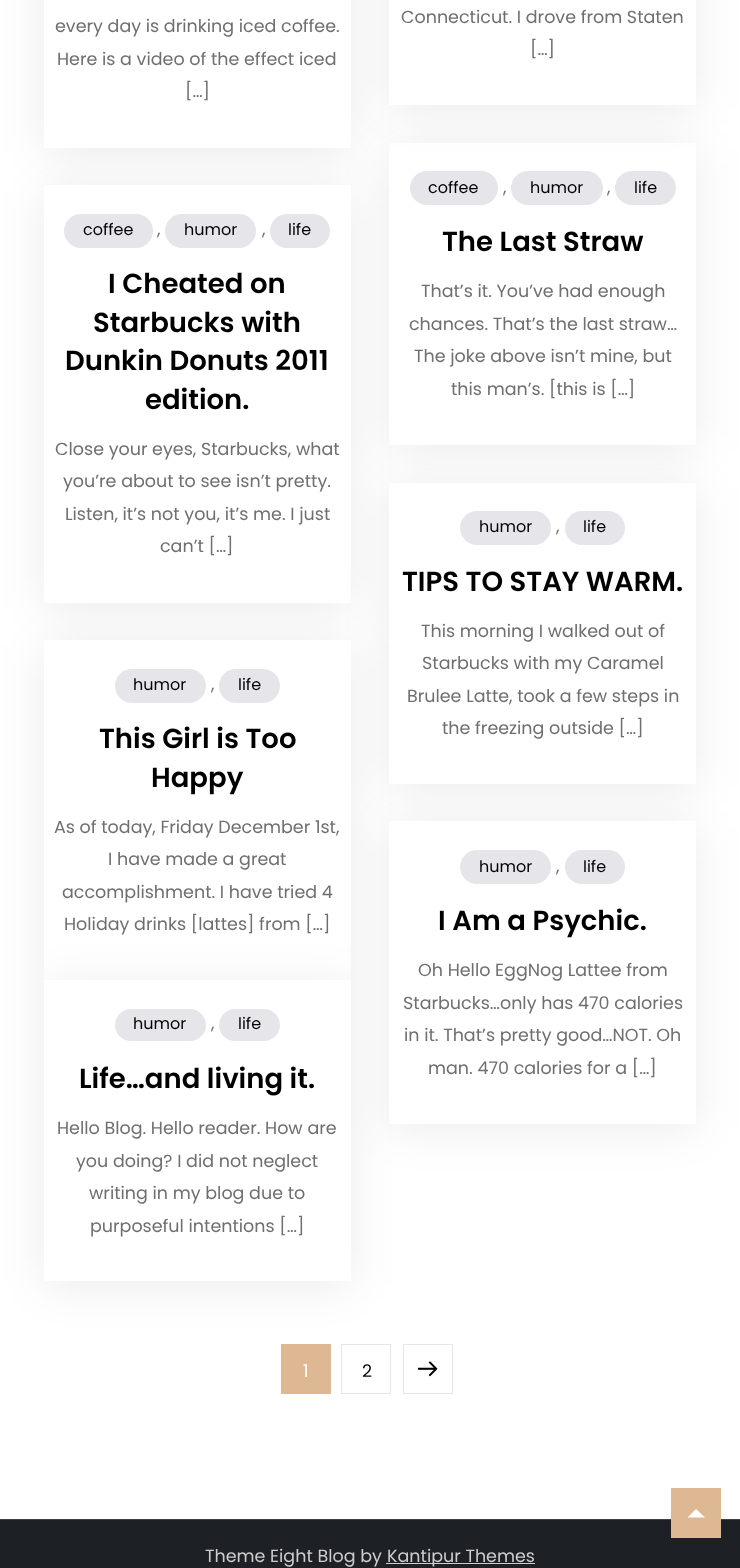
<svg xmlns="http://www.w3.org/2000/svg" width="740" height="1568">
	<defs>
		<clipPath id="clip1"><path d="M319 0H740V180H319ZM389-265H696V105H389Z" clip-rule="evenodd" /></clipPath>
		<clipPath id="clip2"><path d="M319 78H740V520H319ZM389 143H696V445H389Z" clip-rule="evenodd" /></clipPath>
	</defs>
	<rect width="100%" height="100%" fill="#FFFFFF" />
	<rect x="44" y="-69" width="307" height="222" fill="#000000" fill-opacity="0.08" filter="blur(23px)" />
	<rect x="44" y="0" width="307" height="148" fill="#FFFFFF" />
	<g font-family="Poppins" font-size="17.5" fill="#6F6F6F">
		<text x="55" y="32">every day is drinking iced coffee.</text>
		<text x="57" y="65">Here is a video of the effect iced</text>
		<text x="185" y="97">[…]</text>
	</g>
	<g clip-path="url(#clip1)">
		<rect x="389" y="-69" width="307" height="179" fill="#000000" fill-opacity="0.08" filter="blur(23px)" />
	</g>
	<g font-family="Poppins" font-size="17.5" fill="#6F6F6F">
		<text x="401" y="23">Connecticut. I drove from Staten</text>
		<text x="530" y="55">[…]</text>
	</g>
	<g clip-path="url(#clip2)">
		<rect x="389" y="148" width="307" height="302" fill="#000000" fill-opacity="0.08" filter="blur(23px)" />
	</g>
	<rect x="410" y="171" width="88" height="34" rx="17" fill="#E6E6EA" />
	<rect x="44" y="190" width="307" height="418" fill="#000000" fill-opacity="0.08" filter="blur(23px)" />
	<rect x="44" y="185" width="307" height="418" fill="#FFFFFF" />
	<rect x="64" y="214" width="89" height="34" rx="17" fill="#E6E6EA" />
	<text x="83" y="235" font-family="Poppins" font-size="16" fill="#000000">coffee</text>
	<text x="157" y="235" font-family="Poppins" font-size="17.5" fill="#6F6F6F">,</text>
	<rect x="165" y="214" width="91" height="34" rx="17" fill="#E6E6EA" />
	<text x="184" y="235" font-family="Poppins" font-size="16" fill="#000000">humor</text>
	<text x="262" y="235" font-family="Poppins" font-size="17.5" fill="#6F6F6F">,</text>
	<rect x="270" y="214" width="60" height="34" rx="17" fill="#E6E6EA" />
	<text x="288" y="235" font-family="Poppins" font-size="16" fill="#000000">life</text>
	<g font-family="Poppins" font-size="27.5" font-weight="600" fill="#000000">
		<text x="108" y="293">I Cheated on</text>
		<text x="93" y="332">Starbucks with</text>
		<text x="65" y="370">Dunkin Donuts 2011</text>
		<text x="145" y="409">edition.</text>
	</g>
	<g font-family="Poppins" font-size="17.5" fill="#6F6F6F">
		<text x="55" y="455">Close your eyes, Starbucks, what</text>
		<text x="63" y="487">you’re about to see isn’t pretty.</text>
		<text x="65" y="520">Listen, it’s not you, it’s me. I just</text>
		<text x="160" y="552">can’t […]</text>
	</g>
	<text x="428" y="193" font-family="Poppins" font-size="16" fill="#000000">coffee</text>
	<text x="503" y="193" font-family="Poppins" font-size="17.5" fill="#6F6F6F">,</text>
	<rect x="511" y="171" width="92" height="34" rx="17" fill="#E6E6EA" />
	<text x="530" y="193" font-family="Poppins" font-size="16" fill="#000000">humor</text>
	<text x="607" y="193" font-family="Poppins" font-size="17.5" fill="#6F6F6F">,</text>
	<rect x="615" y="171" width="61" height="34" rx="17" fill="#E6E6EA" />
	<text x="634" y="193" font-family="Poppins" font-size="16" fill="#000000">life</text>
	<text x="442" y="251" font-family="Poppins" font-size="27.5" font-weight="600" fill="#000000">The Last Straw</text>
	<g font-family="Poppins" font-size="17.5" fill="#6F6F6F">
		<text x="421" y="297">That’s it. You’ve had enough</text>
		<text x="409" y="330">chances. That’s the last straw…</text>
		<text x="414" y="362">The joke above isn’t mine, but</text>
		<text x="451" y="395">this man’s. [this is […]</text>
	</g>
	<rect x="389" y="488" width="307" height="301" fill="#000000" fill-opacity="0.08" filter="blur(23px)" />
	<rect x="389" y="483" width="307" height="301" fill="#FFFFFF" />
	<rect x="460" y="511" width="91" height="34" rx="17" fill="#E6E6EA" />
	<text x="479" y="532" font-family="Poppins" font-size="16" fill="#000000">humor</text>
	<text x="556" y="532" font-family="Poppins" font-size="17.5" fill="#6F6F6F">,</text>
	<rect x="565" y="511" width="60" height="34" rx="17" fill="#E6E6EA" />
	<text x="583" y="532" font-family="Poppins" font-size="16" fill="#000000">life</text>
	<text x="402" y="591" font-family="Poppins" font-size="27.5" font-weight="600" fill="#000000">TIPS TO STAY WARM.</text>
	<g font-family="Poppins" font-size="17.5" fill="#6F6F6F">
		<text x="421" y="637">This morning I walked out of</text>
		<text x="422" y="669">Starbucks with my Caramel</text>
		<text x="407" y="702">Brulee Latte, took a few steps in</text>
		<text x="442" y="734">the freezing outside […]</text>
	</g>
	<rect x="44" y="645" width="307" height="340" fill="#000000" fill-opacity="0.08" filter="blur(23px)" />
	<rect x="44" y="640" width="307" height="340" fill="#FFFFFF" />
	<rect x="115" y="669" width="91" height="34" rx="17" fill="#E6E6EA" />
	<text x="133" y="690" font-family="Poppins" font-size="16" fill="#000000">humor</text>
	<text x="211" y="690" font-family="Poppins" font-size="17.5" fill="#6F6F6F">,</text>
	<rect x="219" y="669" width="61" height="34" rx="17" fill="#E6E6EA" />
	<text x="238" y="690" font-family="Poppins" font-size="16" fill="#000000">life</text>
	<g font-family="Poppins" font-size="27.5" font-weight="600" fill="#000000">
		<text x="99" y="748">This Girl is Too</text>
		<text x="151" y="787">Happy</text>
	</g>
	<g font-family="Poppins" font-size="17.5" fill="#6F6F6F">
		<text x="54" y="833">As of today, Friday December 1st,</text>
		<text x="108" y="865">I have made a great</text>
		<text x="62" y="898">accomplishment. I have tried 4</text>
		<text x="64" y="930">Holiday drinks [lattes] from […]</text>
	</g>
	<rect x="389" y="826" width="307" height="303" fill="#000000" fill-opacity="0.08" filter="blur(23px)" />
	<rect x="389" y="821" width="307" height="303" fill="#FFFFFF" />
	<rect x="460" y="850" width="91" height="34" rx="17" fill="#E6E6EA" />
	<text x="479" y="872" font-family="Poppins" font-size="16" fill="#000000">humor</text>
	<text x="556" y="872" font-family="Poppins" font-size="17.5" fill="#6F6F6F">,</text>
	<rect x="565" y="850" width="60" height="34" rx="17" fill="#E6E6EA" />
	<text x="583" y="872" font-family="Poppins" font-size="16" fill="#000000">life</text>
	<text x="438" y="930" font-family="Poppins" font-size="27.5" font-weight="600" fill="#000000">I Am a Psychic.</text>
	<g font-family="Poppins" font-size="17.5" fill="#6F6F6F">
		<text x="418" y="976">Oh Hello EggNog Lattee from</text>
		<text x="403" y="1009">Starbucks…only has 470 calories</text>
		<text x="404" y="1041">in it. That’s pretty good…NOT. Oh</text>
		<text x="428" y="1074">man. 470 calories for a […]</text>
	</g>
	<rect x="281" y="1344" width="50" height="50" fill="#DDB892" />
	<rect x="341.5" y="1344.5" width="49" height="49" fill="none" stroke="#E6E6E6" />
	<rect x="403.5" y="1344.5" width="49" height="49" fill="none" stroke="#E6E6E6" />
	<rect x="44" y="985" width="307" height="301" fill="#000000" fill-opacity="0.08" filter="blur(23px)" />
	<rect x="44" y="980" width="307" height="301" fill="#FFFFFF" />
	<rect x="115" y="1009" width="91" height="32" rx="16" fill="#E6E6EA" />
	<text x="133" y="1029" font-family="Poppins" font-size="16" fill="#000000">humor</text>
	<text x="211" y="1029" font-family="Poppins" font-size="17.5" fill="#6F6F6F">,</text>
	<rect x="219" y="1009" width="61" height="32" rx="16" fill="#E6E6EA" />
	<text x="238" y="1029" font-family="Poppins" font-size="16" fill="#000000">life</text>
	<text x="79" y="1088" font-family="Poppins" font-size="27.5" font-weight="600" fill="#000000">Life…and living it.</text>
	<g font-family="Poppins" font-size="17.5" fill="#6F6F6F">
		<text x="57" y="1134">Hello Blog. Hello reader. How are</text>
		<text x="76" y="1167">you doing? I did not neglect</text>
		<text x="89" y="1199">writing in my blog due to</text>
		<text x="90" y="1232">purposeful intentions […]</text>
	</g>
	<text x="303" y="1377" font-family="Poppins" font-size="17.5" fill="#FFFFFF">1</text>
	<text x="362" y="1377" font-family="Poppins" font-size="17.5" fill="#000000">2</text>
	<image x="418" y="1361" width="20" height="16" href="assets/img1.png" />
	<rect x="0" y="1520" width="740" height="48" fill="#1D2024" />
	<rect x="0" y="1519" width="740" height="1" fill="#3F4145" />
	<rect x="671" y="1488" width="50" height="50" fill="#DDB892" />
	<path d="M705 1517.5H687.5L696 1509Z" fill="#FFFFFF" />
	<text x="205" y="1562" font-family="Poppins" font-size="17.5" fill="#CCCCCC">Theme Eight Blog by</text>
	<rect x="386" y="1563" width="149" height="1" fill="#CCCCCC" />
	<text x="387" y="1562" font-family="Poppins" font-size="17.5" fill="#CCCCCC">Kantipur Themes</text>
</svg>
